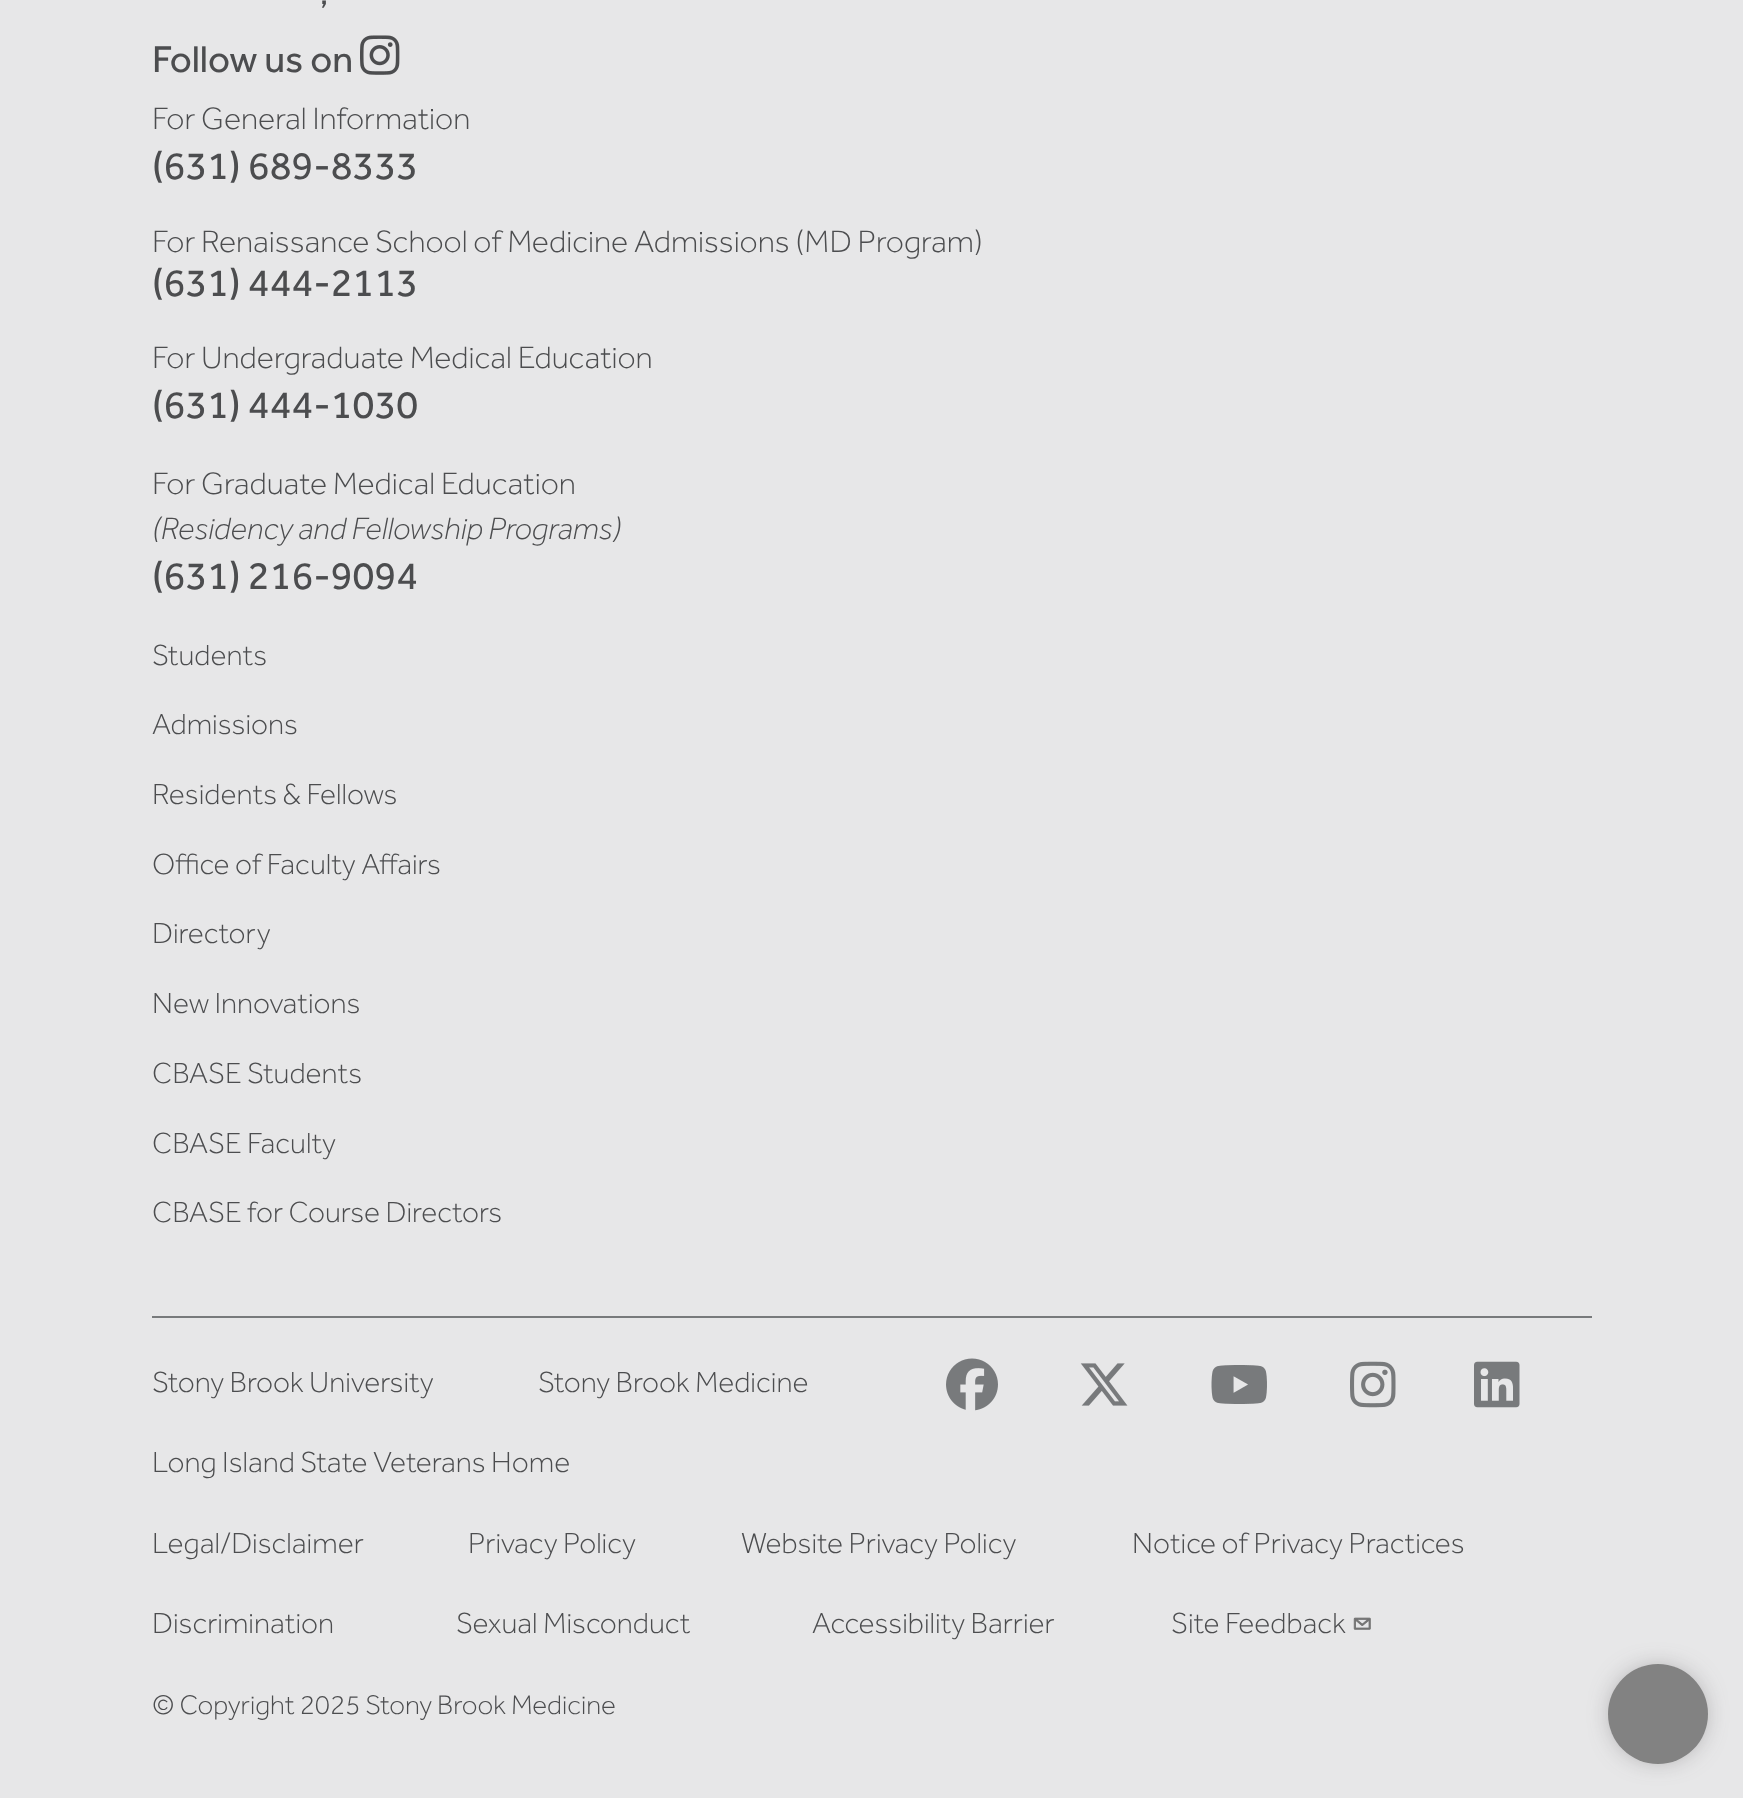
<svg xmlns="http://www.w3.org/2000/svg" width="1743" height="1799">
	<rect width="100%" height="100%" fill="#FFFFFF" />
	<rect x="0" y="0" width="1743" height="1798" fill="#E7E7E8" />
	<text x="320" y="4" font-family="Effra" font-size="32" fill="#4C4D4F">,</text>
	<text x="152" y="72" font-family="Effra" font-size="38.5" fill="#4C4D4F">Follow us on</text>
	<image x="360" y="35" width="40" height="40" href="assets/img1.png" />
	<text x="152" y="129" font-family="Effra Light" font-size="32" font-weight="300" fill="#4C4D4F">For General Information</text>
	<text x="152" y="179" font-family="Effra" font-size="40" fill="#4C4D4F">(631) 689-8333</text>
	<text x="152" y="252" font-family="Effra Light" font-size="32" font-weight="300" fill="#4C4D4F">For Renaissance School of Medicine Admissions (MD Program)</text>
	<text x="152" y="296" font-family="Effra" font-size="40" fill="#4C4D4F">(631) 444-2113</text>
	<text x="152" y="368" font-family="Effra Light" font-size="32" font-weight="300" fill="#4C4D4F">For Undergraduate Medical Education</text>
	<text x="152" y="418" font-family="Effra" font-size="40" fill="#4C4D4F">(631) 444-1030</text>
	<text x="152" y="494" font-family="Effra Light" font-size="32" font-weight="300" fill="#4C4D4F">For Graduate Medical Education</text>
	<text x="152" y="539" font-family="Effra Light" font-size="32" font-weight="300" font-style="italic" fill="#4C4D4F">(Residency and Fellowship Programs)</text>
	<text x="152" y="589" font-family="Effra" font-size="40" fill="#4C4D4F">(631) 216-9094</text>
	<g font-family="Effra Light" font-size="30" font-weight="300" fill="#4C4D4F">
		<text x="152" y="665">Students</text>
		<text x="152" y="734">Admissions</text>
		<text x="152" y="804">Residents &amp; Fellows</text>
		<text x="152" y="874">Office of Faculty Affairs</text>
		<text x="152" y="943">Directory</text>
		<text x="152" y="1013">New Innovations</text>
		<text x="152" y="1083">CBASE Students</text>
		<text x="152" y="1153">CBASE Faculty</text>
		<text x="152" y="1222">CBASE for Course Directors</text>
	</g>
	<rect x="152" y="1316" width="1440" height="2" fill="#787A7C" />
	<image x="946" y="1358" width="52" height="53" href="assets/img2.png" />
	<image x="1080" y="1363" width="48" height="43" href="assets/img3.png" />
	<image x="1211" y="1365" width="56" height="39" href="assets/img4.png" />
	<image x="1350" y="1361" width="46" height="47" href="assets/img5.png" />
	<image x="1474" y="1361" width="46" height="47" href="assets/img6.png" />
	<g font-family="Effra Light" font-size="30" font-weight="300" fill="#4C4D4F">
		<text x="152" y="1392">Stony Brook University</text>
		<text x="538" y="1392">Stony Brook Medicine</text>
		<text x="152" y="1472">Long Island State Veterans Home</text>
		<text x="152" y="1553">Legal/Disclaimer</text>
		<text x="468" y="1553">Privacy Policy</text>
		<text x="741" y="1553">Website Privacy Policy</text>
		<text x="1132" y="1553">Notice of Privacy Practices</text>
		<text x="152" y="1633">Discrimination</text>
		<text x="456" y="1633">Sexual Misconduct</text>
		<text x="812" y="1633">Accessibility Barrier</text>
		<text x="1171" y="1633">Site Feedback</text>
	</g>
	<image x="1353" y="1617" width="18" height="13" href="assets/img7.png" />
	<text x="152" y="1714" font-family="Effra Light" font-size="27.8" font-weight="300" fill="#4C4D4F">© Copyright 2025 Stony Brook Medicine</text>
	<rect x="1620" y="1676" width="76" height="76" rx="38" fill="#423F42" fill-opacity="0.81" filter="blur(15px)" />
	<circle cx="1658" cy="1714" r="50" fill="#828282" />
</svg>
